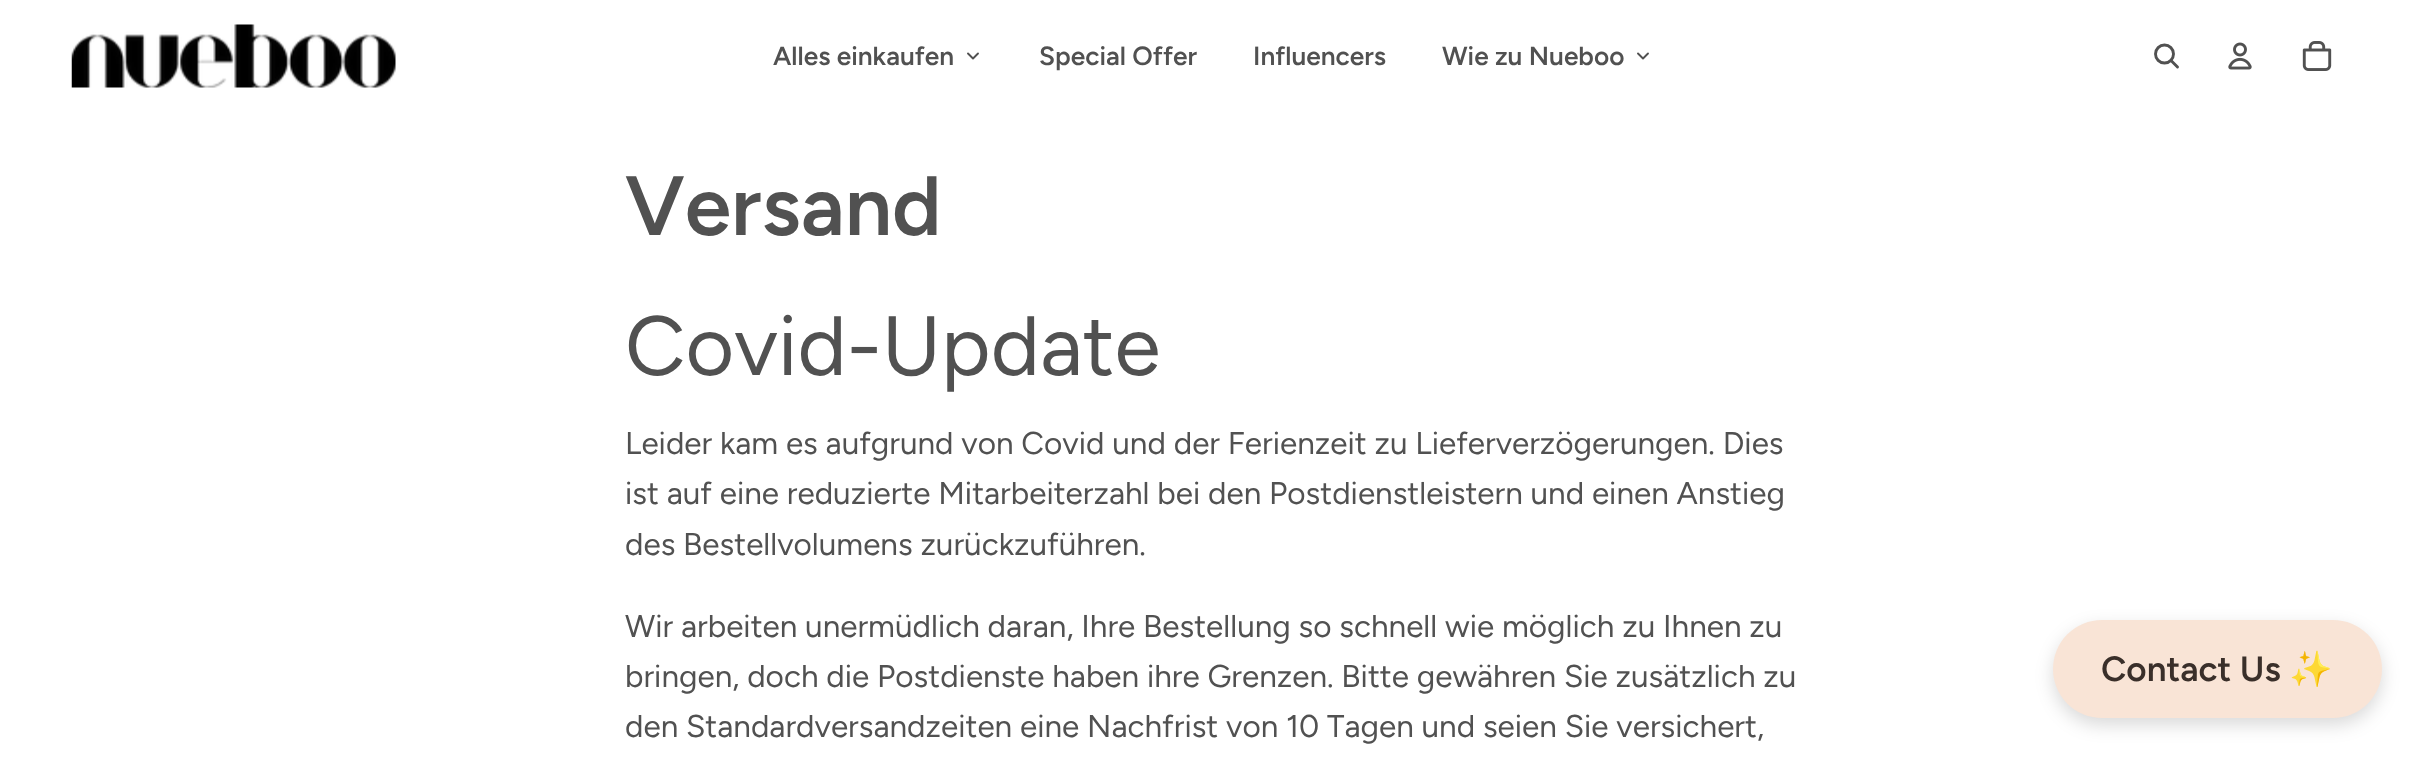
<svg xmlns="http://www.w3.org/2000/svg" width="2424" height="761">
	<style>*{font-kerning:none!important;font-variant-ligatures:none!important}</style>
	<rect width="100%" height="100%" fill="#FFFFFF" />
	<image x="71" y="24" width="325" height="64" href="assets/img1.png" />
	<text x="773" y="65" font-family="Figtree" font-size="26.25" font-weight="600" fill="#515151">Alles einkaufen</text>
	<path d="M968 53.5L973 58.5L978 53.5" fill="none" stroke="#515151" stroke-width="1.9" stroke-linecap="round" stroke-linejoin="round" />
	<g font-family="Figtree" font-size="26.25" font-weight="600" fill="#515151">
		<text x="1039" y="65">Special Offer</text>
		<text x="1253" y="65">Influencers</text>
		<text x="1442" y="65">Wie zu Nueboo</text>
	</g>
	<path d="M1638 53.5L1643 58.5L1648 53.5" fill="none" stroke="#515151" stroke-width="1.9" stroke-linecap="round" stroke-linejoin="round" />
	<circle cx="2164.5" cy="54" r="9" fill="none" stroke="#515151" stroke-width="2.9" />
	<path d="M2171.5 61L2177.5 67" fill="none" stroke="#515151" stroke-width="2.9" stroke-linecap="round" stroke-linejoin="round" />
	<image x="2228" y="42" width="24" height="28" href="assets/img2.png" />
	<image x="2302" y="41" width="30" height="30" href="assets/img3.png" />
	<text x="625" y="235" font-family="Figtree" font-size="84" font-weight="600" fill="#515151">Versand</text>
	<text x="625" y="375" font-family="Figtree" font-size="84" fill="#515151">Covid-Update</text>
	<g font-family="Figtree" font-size="31.5" fill="#515151">
		<text x="625" y="454">Leider kam es aufgrund von Covid und der Ferienzeit zu Lieferverzögerungen. Dies</text>
		<text x="625" y="504">ist auf eine reduzierte Mitarbeiterzahl bei den Postdienstleistern und einen Anstieg</text>
		<text x="625" y="555">des Bestellvolumens zurückzuführen.</text>
		<text x="625" y="637">Wir arbeiten unermüdlich daran, Ihre Bestellung so schnell wie möglich zu Ihnen zu</text>
		<text x="625" y="687">bringen, doch die Postdienste haben ihre Grenzen. Bitte gewähren Sie zusätzlich zu</text>
		<text x="625" y="737">den Standardversandzeiten eine Nachfrist von 10 Tagen und seien Sie versichert,</text>
	</g>
	<rect x="2053" y="627" width="329" height="98" rx="49" fill="#000000" fill-opacity="0.15" filter="blur(9px)" />
	<rect x="2053" y="620" width="329" height="98" rx="49" fill="#F9E4D6" />
	<text x="2101" y="681" font-family="Figtree" font-size="35" font-weight="600" fill="#3A2F2A">Contact Us</text>
	<text x="2289" y="681" font-family="Noto Color Emoji" font-size="35" font-weight="700" fill="#3A2F2A">✨</text>
</svg>
